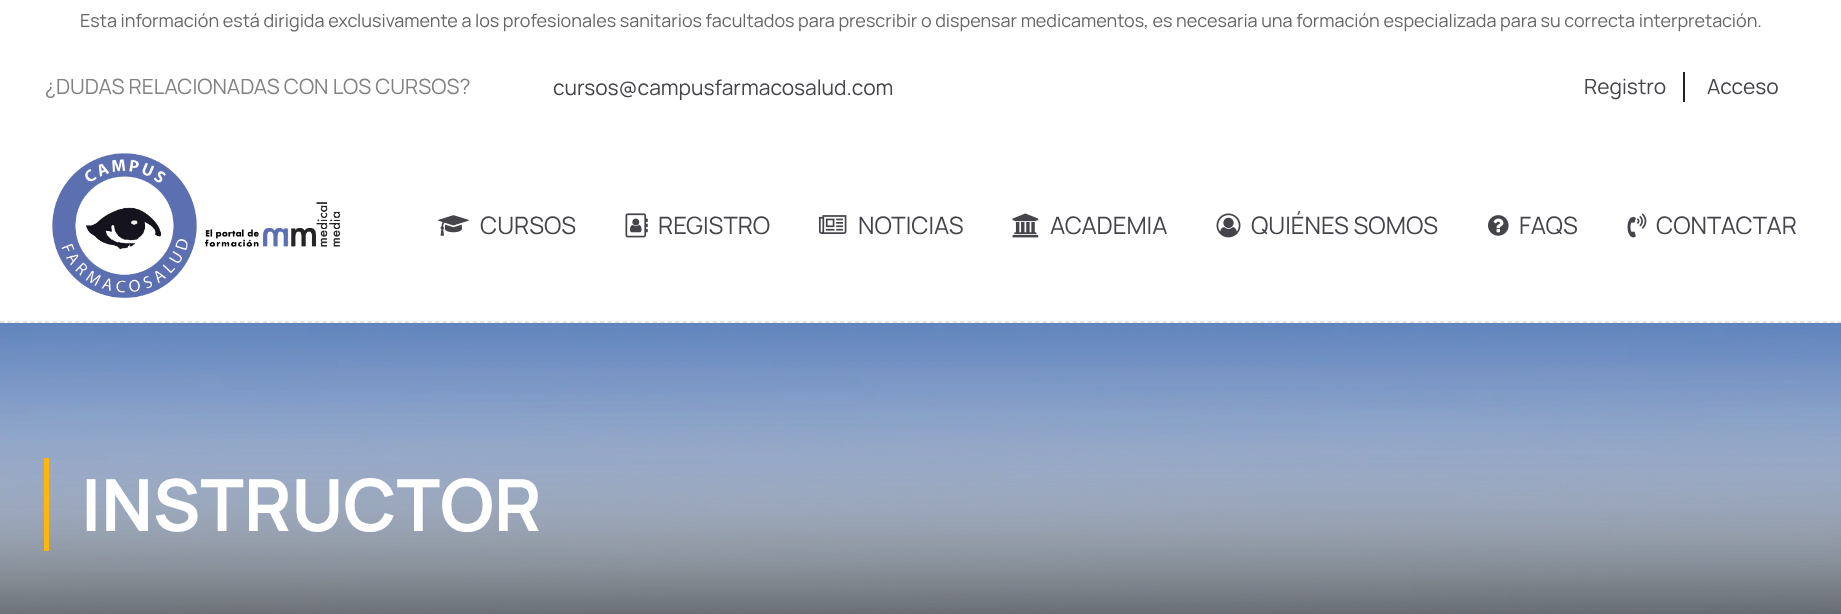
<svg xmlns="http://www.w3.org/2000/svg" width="1841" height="614">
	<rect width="100%" height="100%" fill="#373D43" />
	<rect x="0" y="0" width="1841" height="323" fill="#FFFFFF" />
	<text x="80" y="27" font-family="Manrope" font-size="18" fill="#666666">Esta información está dirigida exclusivamente a los profesionales sanitarios facultados para prescribir o dispensar medicamentos, es necesaria una formación especializada para su correcta interpretación.</text>
	<path d="M0 322H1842" fill="none" stroke="#DDDDDD" stroke-width="1.5" stroke-dasharray="4.5 3" />
	<text x="45" y="94" font-family="Manrope" font-size="21" fill="#828282">¿DUDAS RELACIONADAS CON LOS CURSOS?</text>
	<text x="553" y="95" font-family="Manrope" font-size="21" fill="#45444B">cursos@campusfarmacosalud.com</text>
	<rect x="1683" y="72" width="2" height="30" fill="#212121" />
	<g font-family="Manrope" font-size="21" fill="#45444B">
		<text x="1584" y="94">Registro</text>
		<text x="1707" y="94">Acceso</text>
	</g>
	<image x="52" y="153" width="288" height="145" href="assets/img1.png" />
	<image x="438" y="215" width="31" height="21" href="assets/img2.png" />
	<text x="480" y="234" font-family="Manrope" font-size="24" fill="#45444B">CURSOS</text>
	<image x="625" y="213" width="23" height="25" href="assets/img3.png" />
	<text x="658" y="234" font-family="Manrope" font-size="24" fill="#45444B">REGISTRO</text>
	<image x="819" y="215" width="28" height="19" href="assets/img4.png" />
	<text x="858" y="234" font-family="Manrope" font-size="24" fill="#45444B">NOTICIAS</text>
	<image x="1012" y="213" width="27" height="25" href="assets/img5.png" />
	<text x="1050" y="234" font-family="Manrope" font-size="24" fill="#45444B">ACADEMIA</text>
	<image x="1216" y="213" width="25" height="25" href="assets/img6.png" />
	<text x="1251" y="234" font-family="Manrope" font-size="24" fill="#45444B">QUIÉNES SOMOS</text>
	<image x="1488" y="215" width="21" height="21" href="assets/img7.png" />
	<text x="1519" y="234" font-family="Manrope" font-size="24" fill="#45444B">FAQS</text>
	<image x="1627" y="213" width="20" height="25" href="assets/img8.png" />
	<text x="1656" y="234" font-family="Manrope" font-size="24" fill="#45444B">CONTACTAR</text>
	<image x="0" y="323" width="1841" height="291" href="assets/img9.png" />
	<rect x="44" y="458" width="5" height="93" fill="#FFB606" />
	<text x="81" y="531" font-family="Manrope" font-size="72" font-weight="700" fill="#FFFFFF">INSTRUCTOR</text>
</svg>
